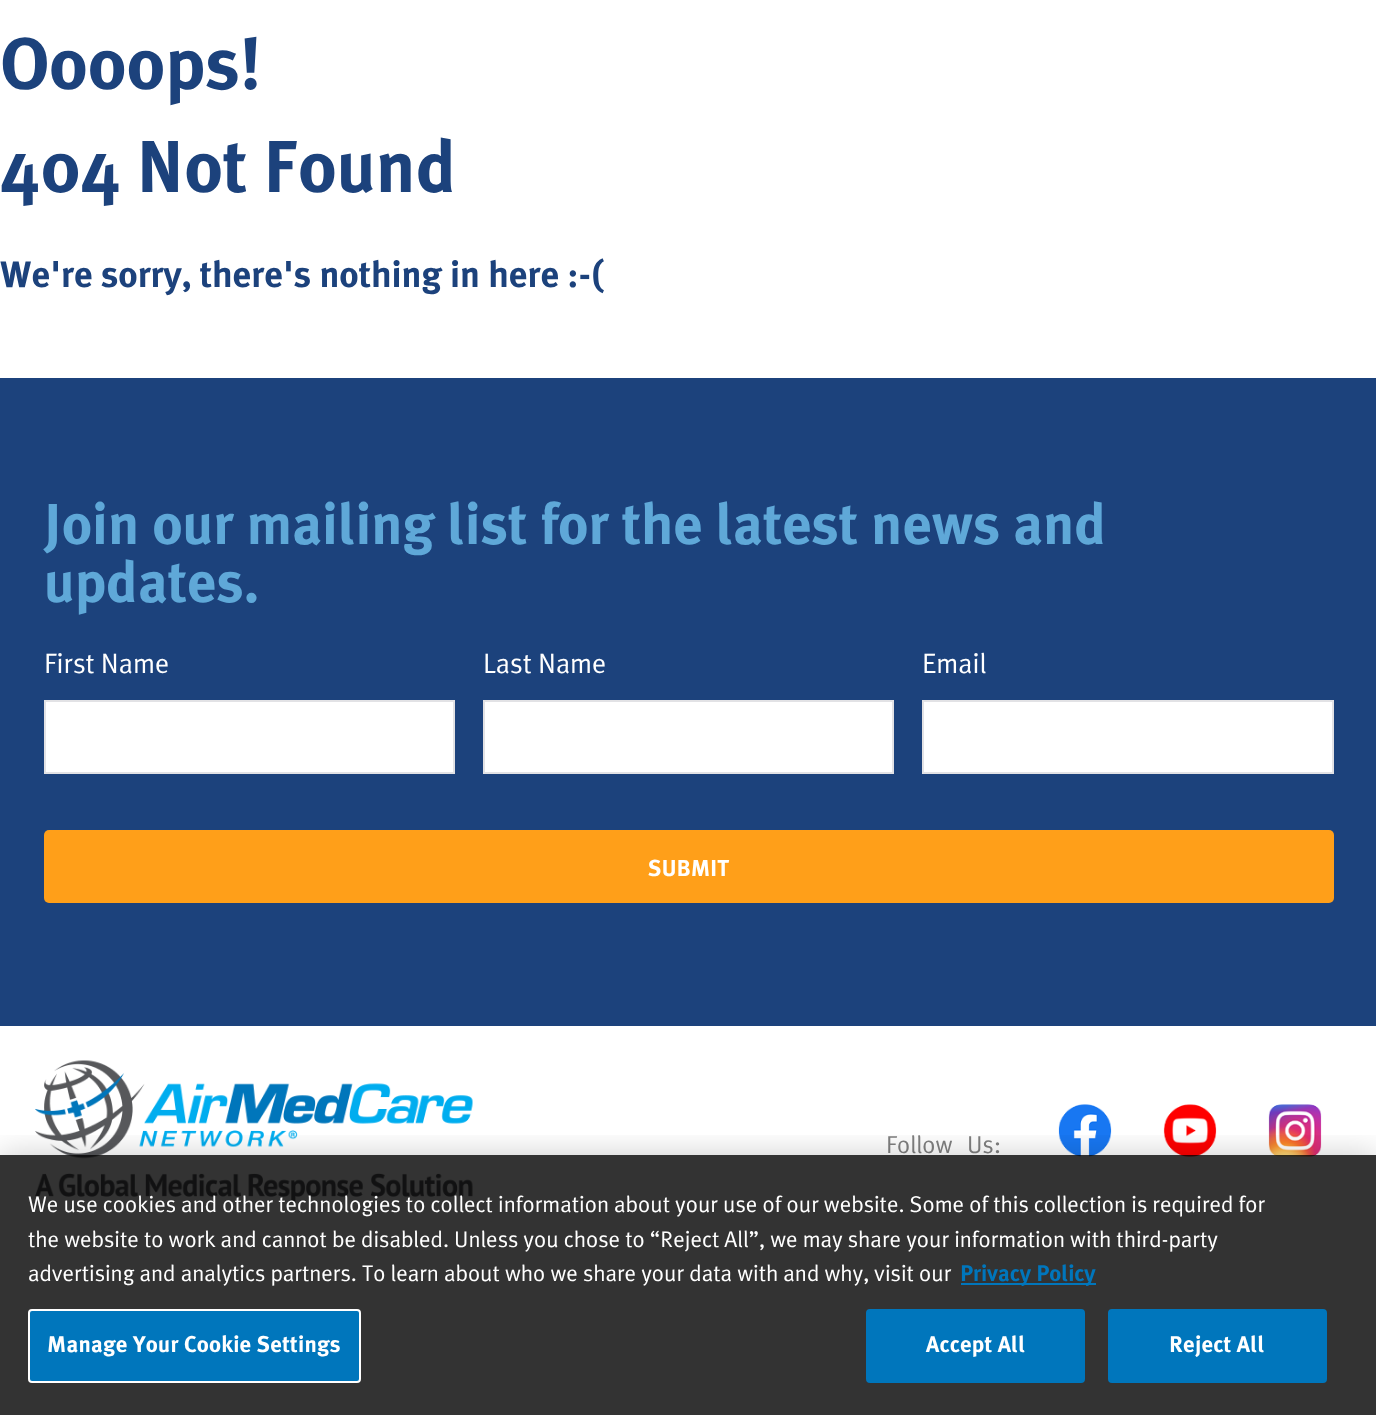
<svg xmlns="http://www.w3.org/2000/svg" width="1376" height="1415">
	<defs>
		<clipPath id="clip1"><rect x="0" y="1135" width="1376" height="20" /></clipPath>
	</defs>
	<rect width="100%" height="100%" fill="#FFFFFF" />
	<g font-family="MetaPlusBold" font-size="73.5" font-weight="700" fill="#1C427C">
		<text x="0" y="89">Oooops!</text>
		<text x="0" y="192" word-spacing="-1">404 Not Found</text>
	</g>
	<text x="0" y="287" font-family="MetaPlusBold" font-size="36.75" font-weight="700" fill="#1C427C">We're sorry, there's nothing in here :-(</text>
	<rect x="0" y="378" width="1376" height="648" fill="#1C427C" />
	<g font-family="MetaPlusBold" font-size="57.75" font-weight="700" fill="#5FA8D8">
		<text x="44" y="544">Join our mailing list for the latest news and</text>
		<text x="44" y="602">updates.</text>
	</g>
	<text x="44" y="673" font-family="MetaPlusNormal" font-size="28" fill="#FFFFFF">First Name</text>
	<rect x="45" y="701" width="409" height="72" fill="#FFFFFF" stroke="#E2E2E5" stroke-width="2" />
	<text x="483" y="673" font-family="MetaPlusNormal" font-size="28" fill="#FFFFFF">Last Name</text>
	<rect x="484" y="701" width="409" height="72" fill="#FFFFFF" stroke="#E2E2E5" stroke-width="2" />
	<text x="922" y="673" font-family="MetaPlusNormal" font-size="28" fill="#FFFFFF">Email</text>
	<rect x="923" y="701" width="410" height="72" fill="#FFFFFF" stroke="#E2E2E5" stroke-width="2" />
	<rect x="44" y="830" width="1290" height="73" rx="5" fill="#FF9F19" />
	<text x="648" y="876" font-family="MetaPlusBold" font-size="23" font-weight="700" fill="#FFFFFF">SUBMIT</text>
	<image x="35" y="1060" width="438" height="143" href="assets/img1.png" />
	<text x="886" y="1153" word-spacing="9" font-family="MetaPlusNormal" font-size="24.5" fill="#808080">Follow Us:</text>
	<image x="1058" y="1104" width="54" height="53" href="assets/img2.png" />
	<image x="1163" y="1104" width="54" height="53" href="assets/img3.png" />
	<image x="1268" y="1104" width="54" height="53" href="assets/img4.png" />
	<g clip-path="url(#clip1)">
		<rect x="0" y="1155" width="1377" height="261" fill="#000000" fill-opacity="0.2" filter="blur(16px)" />
	</g>
	<rect x="0" y="1155" width="1376" height="260" fill="#000000" fill-opacity="0.8" />
	<g font-family="MetaPlusNormal" font-size="22.75" fill="#FFFFFF">
		<text x="28" y="1212">We use cookies and other technologies to collect information about your use of our website. Some of this collection is required for</text>
		<text x="28" y="1247">the website to work and cannot be disabled. Unless you chose to “Reject All”, we may share your information with third-party</text>
		<text x="28" y="1281">advertising and analytics partners. To learn about who we share your data with and why, visit our</text>
	</g>
	<rect x="961" y="1283" width="135" height="2" fill="#0076BC" />
	<text x="960" y="1281" font-family="MetaPlusBold" font-size="22.75" font-weight="700" fill="#0076BC">Privacy Policy</text>
	<rect x="29" y="1310" width="331" height="72" rx="3" fill="#0076BC" stroke="#FFFFFF" stroke-width="2" />
	<text x="47" y="1352" font-family="MetaPlusBold" font-size="22.75" font-weight="700" letter-spacing="0.25" fill="#FFFFFF">Manage Your Cookie Settings</text>
	<rect x="867" y="1310" width="217" height="72" rx="3" fill="#0076BC" stroke="#0076BC" stroke-width="2" />
	<text x="926" y="1352" font-family="MetaPlusBold" font-size="22.75" font-weight="700" letter-spacing="0.25" fill="#FFFFFF">Accept All</text>
	<rect x="1109" y="1310" width="217" height="72" rx="3" fill="#0076BC" stroke="#0076BC" stroke-width="2" />
	<text x="1169" y="1352" font-family="MetaPlusBold" font-size="22.75" font-weight="700" letter-spacing="0.25" fill="#FFFFFF">Reject All</text>
</svg>
